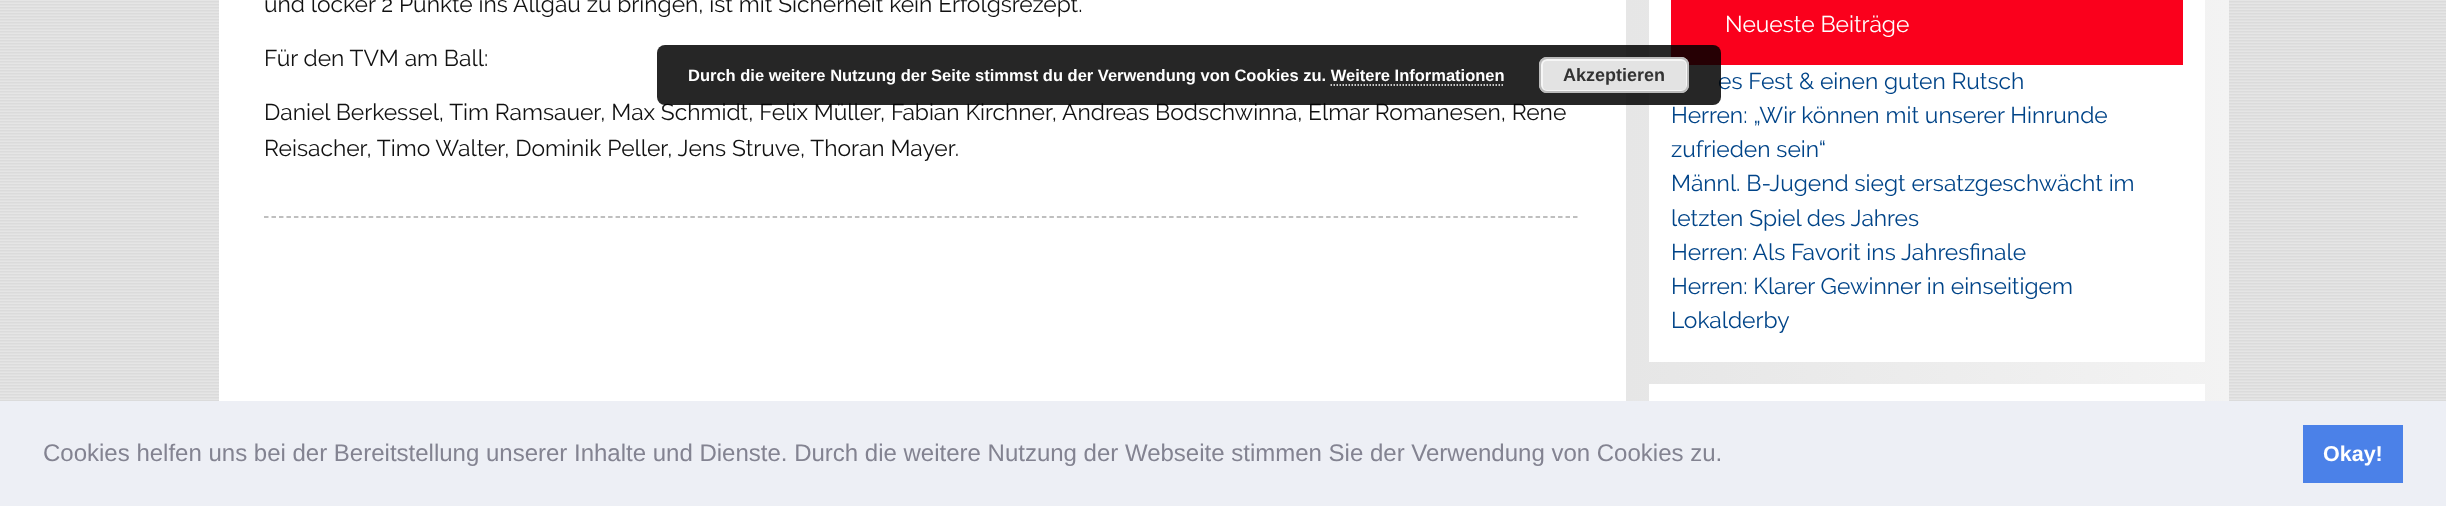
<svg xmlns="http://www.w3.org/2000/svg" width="2446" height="506">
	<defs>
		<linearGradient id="g1" gradientUnits="userSpaceOnUse" x1="1626" y1="-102" x2="2229" y2="-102"><stop offset="0" stop-color="#E6E6E6" /><stop offset="1" stop-color="#F3F3F3" /></linearGradient>
	</defs>
	<rect width="100%" height="100%" fill="#E5E5E5" />
	<image x="0" y="1" width="2446" height="400" href="assets/img1.png" />
	<rect x="219" y="0" width="1407" height="401" fill="#FFFFFF" />
	<path d="M264 217H1579.5" fill="none" stroke="#AAAAAA" stroke-width="1.5" stroke-dasharray="4.5 2.98" />
	<g font-family="Raleway" font-size="22.8" fill="#111111">
		<text x="264" y="12">und locker 2 Punkte ins Allgäu zu bringen, ist mit Sicherheit kein Erfolgsrezept.</text>
		<text x="264" y="66">Für den TVM am Ball:</text>
		<text x="264" y="120">Daniel Berkessel, Tim Ramsauer, Max Schmidt, Felix Müller, Fabian Kirchner, Andreas Bodschwinna, Elmar Romanesen, Rene</text>
		<text x="264" y="156">Reisacher, Timo Walter, Dominik Peller, Jens Struve, Thoran Mayer.</text>
	</g>
	<rect x="1626" y="0" width="603" height="401" fill="url(#g1)" />
	<rect x="1649" y="0" width="556" height="362" fill="#FFFFFF" />
	<rect x="1671" y="0" width="512" height="65" fill="#FA001C" />
	<text x="1725" y="32" font-family="Raleway" font-size="22.8" fill="#FFFFFF">Neueste Beiträge</text>
	<g font-family="Raleway" font-size="22.8" fill="#004488">
		<text x="1718" y="89">es Fest &amp; einen guten Rutsch</text>
		<text x="1671" y="123">Herren: „Wir können mit unserer Hinrunde</text>
		<text x="1671" y="157">zufrieden sein“</text>
		<text x="1671" y="191">Männl. B-Jugend siegt ersatzgeschwächt im</text>
		<text x="1671" y="226">letzten Spiel des Jahres</text>
		<text x="1671" y="260">Herren: Als Favorit ins Jahresfinale</text>
		<text x="1671" y="294">Herren: Klarer Gewinner in einseitigem</text>
		<text x="1671" y="328">Lokalderby</text>
	</g>
	<rect x="1649" y="384" width="556" height="17" fill="#FFFFFF" />
	<rect x="657" y="45" width="1064" height="60" rx="8" fill="#000000" fill-opacity="0.85" />
	<text x="688" y="81" font-family="Liberation Sans" font-size="16.5" font-weight="700" fill="#FFFFFF">Durch die weitere Nutzung der Seite stimmst du der Verwendung von Cookies zu. Weitere Informationen</text>
	<rect x="1539" y="57" width="150" height="36" rx="8" fill="#E3E3E3" />
	<rect x="1542" y="60" width="145" height="31" rx="5" fill="none" stroke="#F6F6F6" stroke-width="2" />
	<rect x="1540" y="58" width="148" height="34" rx="7" fill="none" stroke="#BBBBBB" stroke-width="2" />
	<text x="1563" y="81" font-family="Liberation Sans" font-size="18" font-weight="700" fill="#333333">Akzeptieren</text>
	<path d="M1330.5 85H1504.5" fill="none" stroke="#FFFFFF" stroke-width="1.5" stroke-dasharray="1.5 1.5" />
	<rect x="0" y="401" width="2446" height="105" fill="#EDEFF5" />
	<text x="43" y="461" font-family="Liberation Sans" font-size="24" fill="#838391">Cookies helfen uns bei der Bereitstellung unserer Inhalte und Dienste. Durch die weitere Nutzung der Webseite stimmen Sie der Verwendung von Cookies zu.</text>
	<rect x="2303" y="425" width="100" height="58" fill="#4B81E8" />
	<text x="2323" y="461" font-family="Liberation Sans" font-size="21.5" font-weight="700" fill="#FFFFFF">Okay!</text>
</svg>
